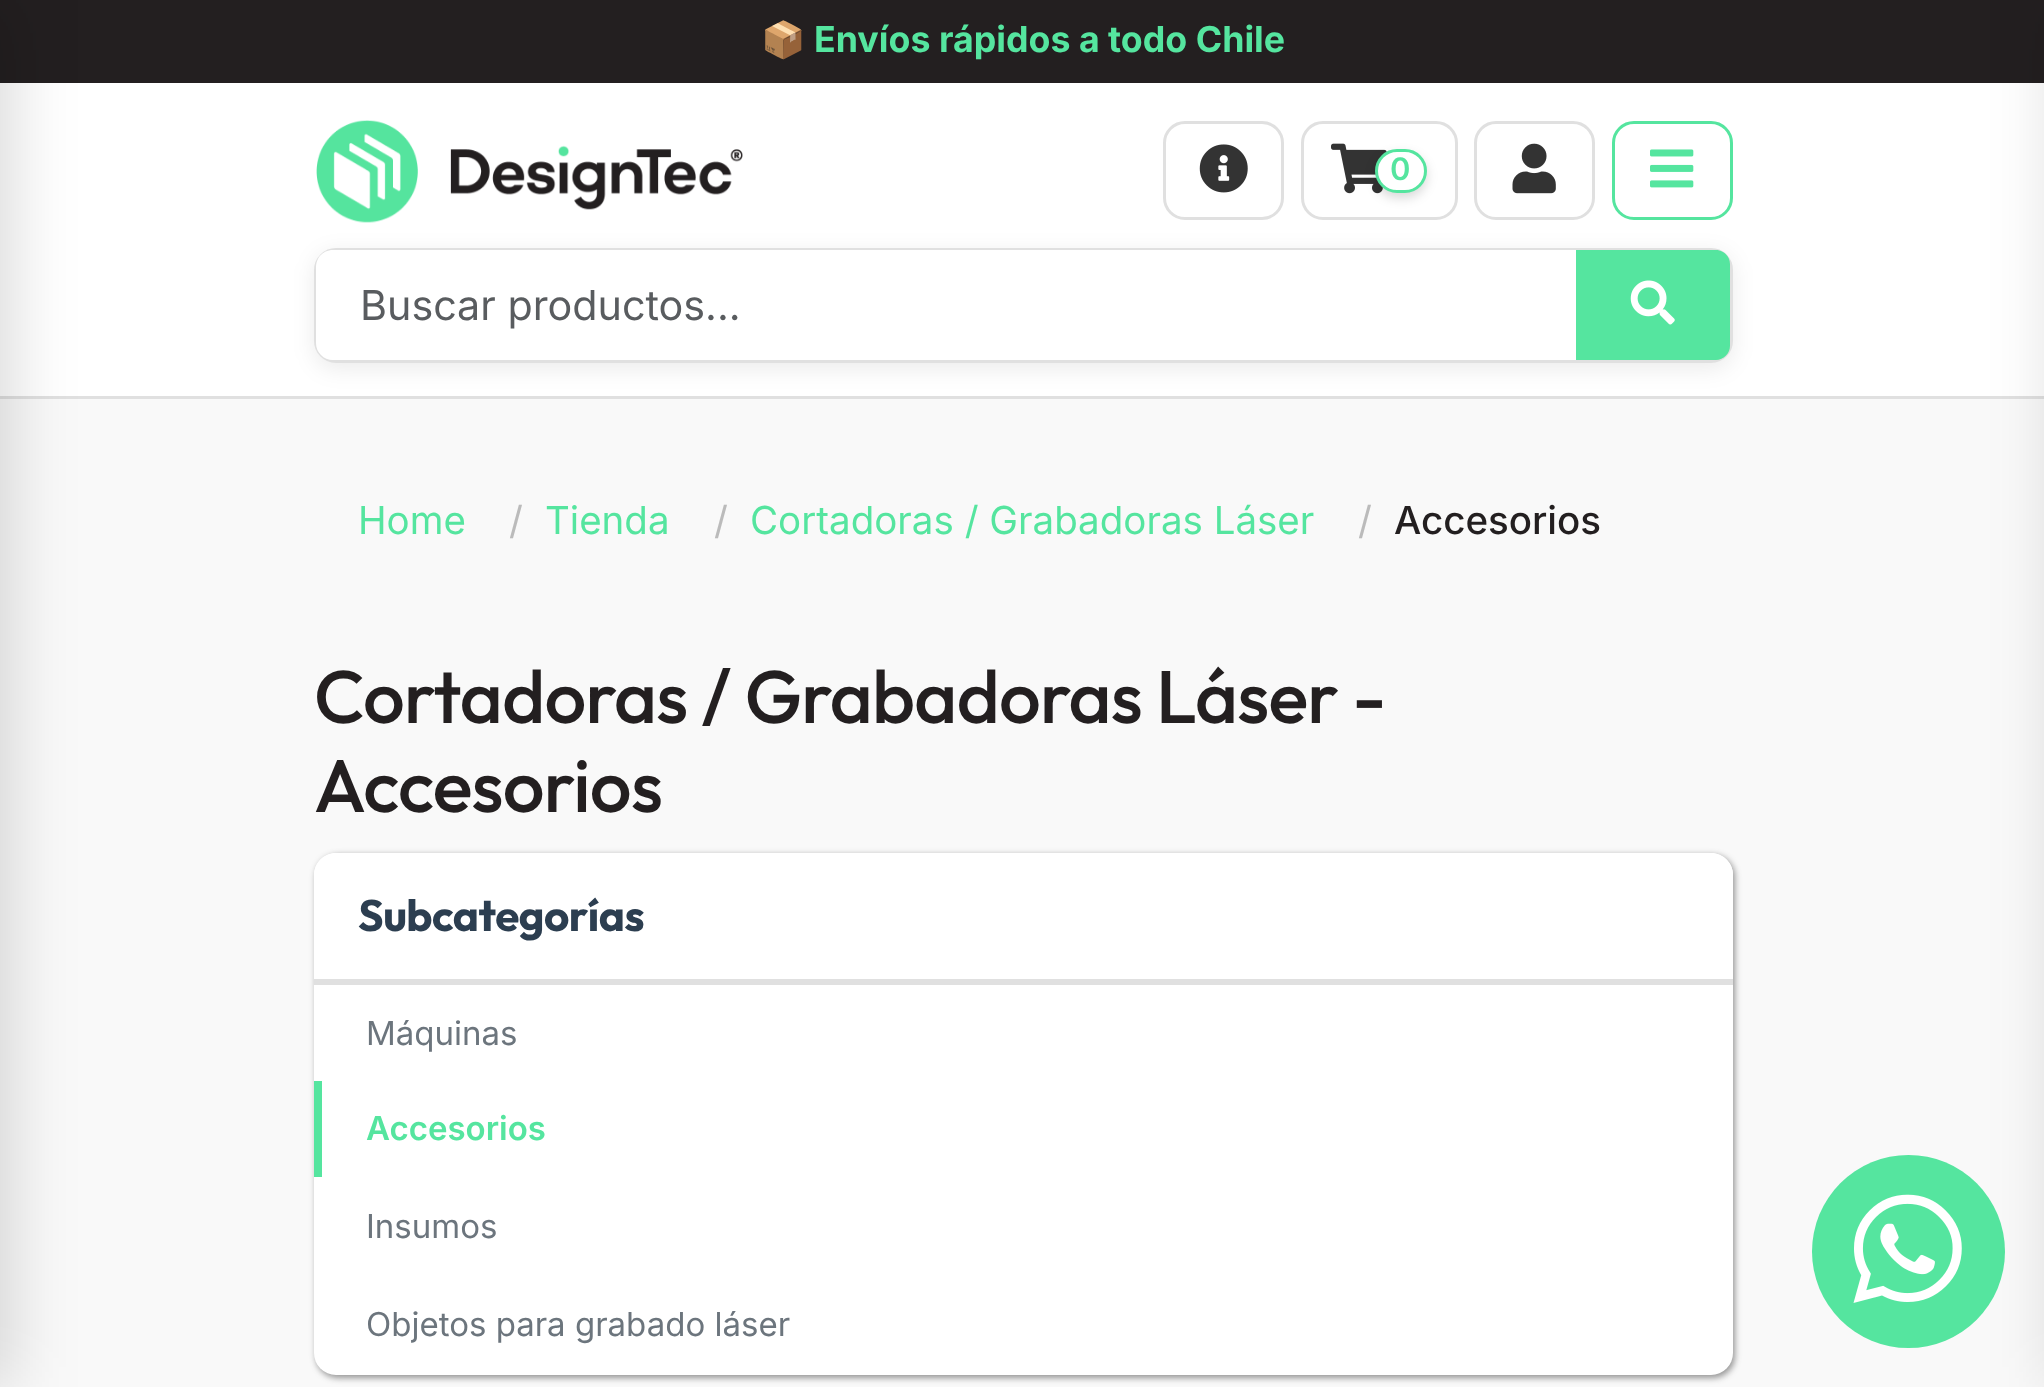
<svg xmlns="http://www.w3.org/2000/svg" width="2044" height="1387">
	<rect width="100%" height="100%" fill="#F9F9F9" />
	<rect x="0" y="83" width="2044" height="313" fill="#FFFFFF" />
	<rect x="0" y="0" width="2044" height="83" fill="#231F20" />
	<rect x="0" y="396" width="2044" height="3" fill="#E0E0E0" />
	<rect x="-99" y="0" width="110" height="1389" fill="#000000" fill-opacity="0.15" filter="blur(33px)" />
	<text x="761" y="52" font-family="Noto Color Emoji" font-size="35.75" font-weight="700" fill="#55E59F">📦</text>
	<text x="814" y="52" font-family="Inter" font-size="35.75" font-weight="700" fill="#55E59F">Envíos rápidos a todo Chile</text>
	<image x="316" y="120" width="427" height="103" href="assets/img1.png" />
	<rect x="1164.5" y="122.5" width="118" height="96" rx="20.5" fill="none" stroke="#E0E0E0" stroke-width="3" />
	<image x="1199" y="144" width="49" height="49" href="assets/img2.png" />
	<rect x="1302.5" y="122.5" width="154" height="96" rx="20.5" fill="none" stroke="#E0E0E0" stroke-width="3" />
	<image x="1331" y="143" width="56" height="51" href="assets/img3.png" />
	<rect x="1375" y="154" width="52" height="44" rx="22" fill="#000000" fill-opacity="0.15" filter="blur(5.5px)" />
	<rect x="1376.5" y="150.5" width="49" height="41" rx="20.5" fill="#FFFFFF" stroke="#55E59F" stroke-width="3" />
	<text x="1390" y="180" font-family="Inter" font-size="31" font-weight="600" fill="#55E59F">0</text>
	<rect x="1475.5" y="122.5" width="118" height="96" rx="20.5" fill="none" stroke="#E0E0E0" stroke-width="3" />
	<image x="1512" y="143" width="44" height="51" href="assets/img4.png" />
	<rect x="1613.5" y="122.5" width="118" height="96" rx="20.5" fill="none" stroke="#55E59F" stroke-width="3" />
	<image x="1650" y="149" width="44" height="39" href="assets/img5.png" />
	<rect x="314" y="253" width="1419" height="116" rx="22" fill="#000000" fill-opacity="0.08" filter="blur(11px)" />
	<rect x="315.5" y="249.5" width="1416" height="112" rx="20.5" fill="none" stroke="#E0E0E0" stroke-width="3" />
	<path d="M333 250H1579V360H333C323.5 360 316 352.5 316 343V267C316 257.5 323.5 250 333 250Z" fill="#FFFFFF" />
	<text x="360" y="320" font-family="Inter" font-size="41.25" fill="#595C5F">Buscar productos...</text>
	<path d="M1576 250H1716C1723.5 250 1730 256.5 1730 264V346C1730 353.5 1723.5 360 1716 360H1576Z" fill="#55E59F" />
	<image x="1630" y="280" width="45" height="45" href="assets/img6.png" />
	<circle cx="1908.5" cy="1251.5" r="96.5" fill="#55E59F" />
	<image x="1853" y="1194" width="109" height="109" href="assets/img7.png" />
	<rect x="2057" y="0" width="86" height="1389" fill="#000000" fill-opacity="0.15" filter="blur(33px)" />
	<text x="358" y="534" font-family="Inter" font-size="38.5" fill="#55E59F">Home</text>
	<text x="509" y="534" font-family="Inter" font-size="38.5" fill="#BBBBBB">/</text>
	<text x="545" y="534" font-family="Inter" font-size="38.5" fill="#55E59F">Tienda</text>
	<text x="714" y="534" font-family="Inter" font-size="38.5" fill="#BBBBBB">/</text>
	<text x="750" y="534" font-family="Inter" font-size="38.5" fill="#55E59F">Cortadoras / Grabadoras Láser</text>
	<text x="1358" y="534" font-family="Inter" font-size="38.5" fill="#BBBBBB">/</text>
	<text x="1394" y="534" font-family="Inter" font-size="38.5" font-weight="500" fill="#231F20">Accesorios</text>
	<g font-family="Outfit" font-size="74.25" font-weight="500" letter-spacing="-0.75" fill="#231F20">
		<text x="314" y="723">Cortadoras / Grabadoras Láser -</text>
		<text x="314" y="812">Accesorios</text>
	</g>
	<rect x="316" y="855" width="1419" height="523" rx="22" fill="#323232" fill-opacity="0.5" filter="blur(3px)" />
	<rect x="314" y="853" width="1419" height="522" rx="22" fill="#FFFFFF" />
	<path d="M336 853H1711C1723 853 1733 863 1733 875V985H314V875C314 863 324 853 336 853Z" fill="#FFFFFF" />
	<rect x="314" y="979" width="1419" height="6" fill="#E0E0E0" />
	<text x="358" y="931" font-family="Outfit" font-size="44" font-weight="700" letter-spacing="-0.5" fill="#2C3E50">Subcategorías</text>
	<text x="366" y="1045" font-family="Inter" font-size="33" fill="#6C757D">Máquinas</text>
	<rect x="314" y="1081" width="8" height="96" fill="#55E59F" />
	<text x="366" y="1140" font-family="Inter" font-size="33" font-weight="600" fill="#55E59F">Accesorios</text>
	<g font-family="Inter" font-size="33" fill="#6C757D">
		<text x="366" y="1238">Insumos</text>
		<text x="366" y="1336">Objetos para grabado láser</text>
	</g>
</svg>
